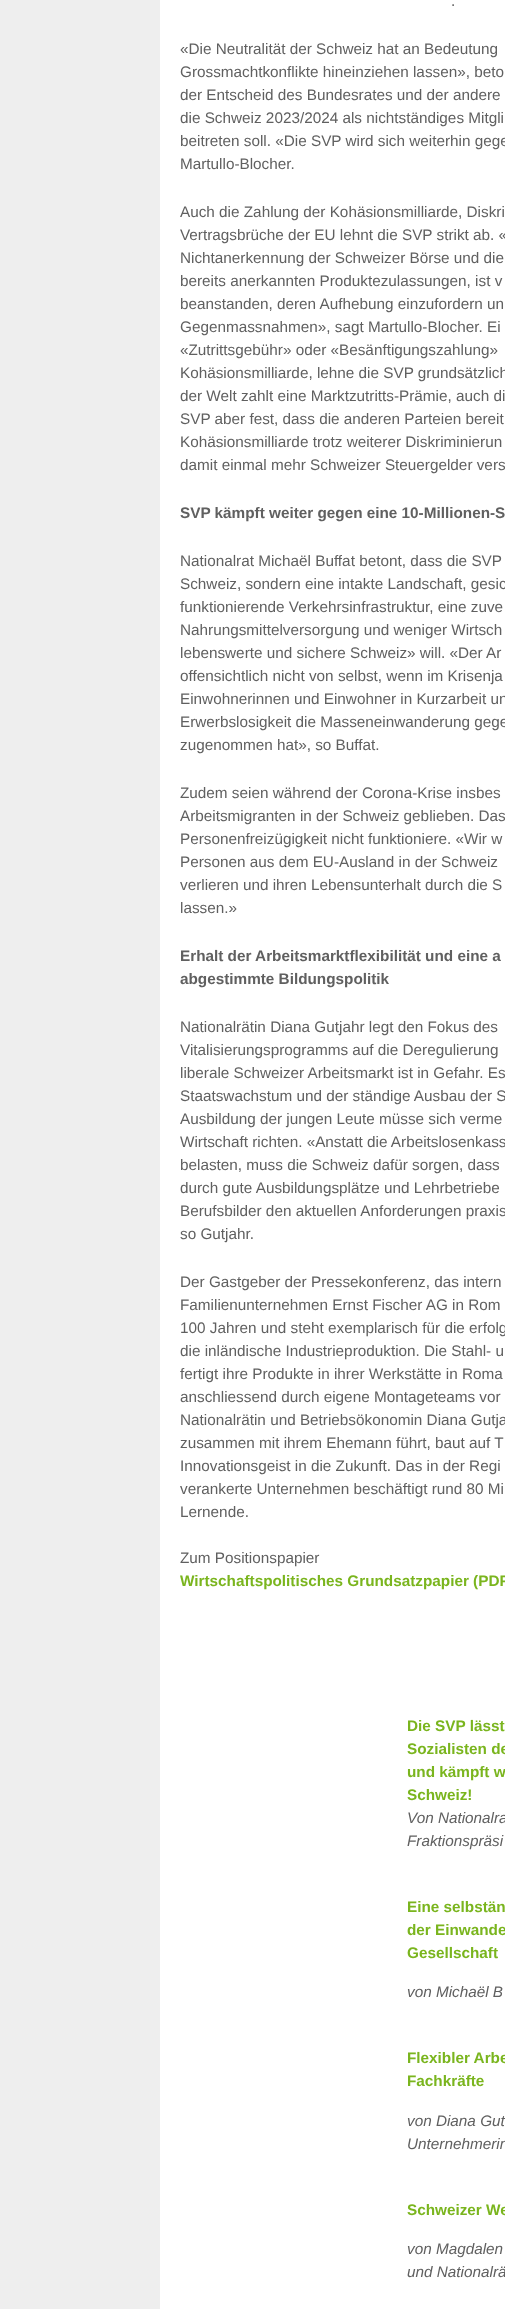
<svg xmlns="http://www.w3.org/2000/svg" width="505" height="2309">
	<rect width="100%" height="100%" fill="#FFFFFF" />
	<rect x="0" y="0" width="160" height="2309" fill="#EEEEEE" />
	<g font-family="Liberation Sans" font-size="15.3" fill="#606060">
		<text x="451" y="6">.</text>
		<text x="180" y="54">«Die Neutralität der Schweiz hat an Bedeutung</text>
		<text x="180" y="77">Grossmachtkonflikte hineinziehen lassen», beto</text>
		<text x="180" y="100">der Entscheid des Bundesrates und der andere</text>
		<text x="180" y="123">die Schweiz 2023/2024 als nichtständiges Mitgli</text>
		<text x="180" y="146">beitreten soll. «Die SVP wird sich weiterhin gege</text>
		<text x="180" y="169">Martullo-Blocher.</text>
		<text x="180" y="217">Auch die Zahlung der Kohäsionsmilliarde, Diskri</text>
		<text x="180" y="240">Vertragsbrüche der EU lehnt die SVP strikt ab. «</text>
		<text x="180" y="263">Nichtanerkennung der Schweizer Börse und die</text>
		<text x="180" y="286">bereits anerkannten Produktezulassungen, ist v</text>
		<text x="180" y="309">beanstanden, deren Aufhebung einzufordern un</text>
		<text x="180" y="332">Gegenmassnahmen», sagt Martullo-Blocher. Ei</text>
		<text x="180" y="355">«Zutrittsgebühr» oder «Besänftigungszahlung»</text>
		<text x="180" y="378">Kohäsionsmilliarde, lehne die SVP grundsätzlich</text>
		<text x="180" y="401">der Welt zahlt eine Marktzutritts-Prämie, auch di</text>
		<text x="180" y="424">SVP aber fest, dass die anderen Parteien bereit</text>
		<text x="180" y="447">Kohäsionsmilliarde trotz weiterer Diskriminierun</text>
		<text x="180" y="470">damit einmal mehr Schweizer Steuergelder vers</text>
	</g>
	<text x="180" y="518" font-family="Liberation Sans" font-size="15.3" font-weight="700" fill="#606060">SVP kämpft weiter gegen eine 10-Millionen-S</text>
	<g font-family="Liberation Sans" font-size="15.3" fill="#606060">
		<text x="180" y="566">Nationalrat Michaël Buffat betont, dass die SVP</text>
		<text x="180" y="589">Schweiz, sondern eine intakte Landschaft, gesic</text>
		<text x="180" y="612">funktionierende Verkehrsinfrastruktur, eine zuve</text>
		<text x="180" y="635">Nahrungsmittelversorgung und weniger Wirtsch</text>
		<text x="180" y="658">lebenswerte und sichere Schweiz» will. «Der Ar</text>
		<text x="180" y="681">offensichtlich nicht von selbst, wenn im Krisenja</text>
		<text x="180" y="704">Einwohnerinnen und Einwohner in Kurzarbeit un</text>
		<text x="180" y="727">Erwerbslosigkeit die Masseneinwanderung gege</text>
		<text x="180" y="750">zugenommen hat», so Buffat.</text>
		<text x="180" y="798">Zudem seien während der Corona-Krise insbes</text>
		<text x="180" y="821">Arbeitsmigranten in der Schweiz geblieben. Das</text>
		<text x="180" y="844">Personenfreizügigkeit nicht funktioniere. «Wir w</text>
		<text x="180" y="867">Personen aus dem EU-Ausland in der Schweiz</text>
		<text x="180" y="890">verlieren und ihren Lebensunterhalt durch die S</text>
		<text x="180" y="913">lassen.»</text>
	</g>
	<g font-family="Liberation Sans" font-size="15.3" font-weight="700" fill="#606060">
		<text x="180" y="961">Erhalt der Arbeitsmarktflexibilität und eine a</text>
		<text x="180" y="984">abgestimmte Bildungspolitik</text>
	</g>
	<g font-family="Liberation Sans" font-size="15.3" fill="#606060">
		<text x="180" y="1032">Nationalrätin Diana Gutjahr legt den Fokus des</text>
		<text x="180" y="1055">Vitalisierungsprogramms auf die Deregulierung</text>
		<text x="180" y="1078">liberale Schweizer Arbeitsmarkt ist in Gefahr. Es</text>
		<text x="180" y="1101">Staatswachstum und der ständige Ausbau der S</text>
		<text x="180" y="1124">Ausbildung der jungen Leute müsse sich verme</text>
		<text x="180" y="1147">Wirtschaft richten. «Anstatt die Arbeitslosenkass</text>
		<text x="180" y="1170">belasten, muss die Schweiz dafür sorgen, dass</text>
		<text x="180" y="1193">durch gute Ausbildungsplätze und Lehrbetriebe</text>
		<text x="180" y="1216">Berufsbilder den aktuellen Anforderungen praxis</text>
		<text x="180" y="1239">so Gutjahr.</text>
		<text x="180" y="1287">Der Gastgeber der Pressekonferenz, das intern</text>
		<text x="180" y="1310">Familienunternehmen Ernst Fischer AG in Rom</text>
		<text x="180" y="1333">100 Jahren und steht exemplarisch für die erfolg</text>
		<text x="180" y="1356">die inländische Industrieproduktion. Die Stahl- u</text>
		<text x="180" y="1379">fertigt ihre Produkte in ihrer Werkstätte in Roma</text>
		<text x="180" y="1402">anschliessend durch eigene Montageteams vor</text>
		<text x="180" y="1425">Nationalrätin und Betriebsökonomin Diana Gutja</text>
		<text x="180" y="1448">zusammen mit ihrem Ehemann führt, baut auf T</text>
		<text x="180" y="1471">Innovationsgeist in die Zukunft. Das in der Regi</text>
		<text x="180" y="1494">verankerte Unternehmen beschäftigt rund 80 Mi</text>
		<text x="180" y="1517">Lernende.</text>
		<text x="180" y="1563">Zum Positionspapier</text>
	</g>
	<g font-family="Liberation Sans" font-size="15.3" font-weight="700" fill="#7AB51E">
		<text x="180" y="1586">Wirtschaftspolitisches Grundsatzpapier (PDF</text>
		<text x="407" y="1731">Die SVP lässt</text>
		<text x="407" y="1754">Sozialisten de</text>
		<text x="407" y="1777">und kämpft w</text>
		<text x="407" y="1800">Schweiz!</text>
	</g>
	<g font-family="Liberation Sans" font-size="15.3" font-style="italic" fill="#606060">
		<text x="407" y="1823">Von Nationalra</text>
		<text x="407" y="1846">Fraktionspräsi</text>
	</g>
	<g font-family="Liberation Sans" font-size="15.3" font-weight="700" fill="#7AB51E">
		<text x="407" y="1912">Eine selbstän</text>
		<text x="407" y="1935">der Einwande</text>
		<text x="407" y="1958">Gesellschaft</text>
	</g>
	<text x="407" y="1997" font-family="Liberation Sans" font-size="15.3" font-style="italic" fill="#606060">von Michaël B</text>
	<g font-family="Liberation Sans" font-size="15.3" font-weight="700" fill="#7AB51E">
		<text x="407" y="2063">Flexibler Arbe</text>
		<text x="407" y="2086">Fachkräfte</text>
	</g>
	<g font-family="Liberation Sans" font-size="15.3" font-style="italic" fill="#606060">
		<text x="407" y="2126">von Diana Gut</text>
		<text x="407" y="2149">Unternehmerin</text>
	</g>
	<text x="407" y="2215" font-family="Liberation Sans" font-size="15.3" font-weight="700" fill="#7AB51E">Schweizer We</text>
	<g font-family="Liberation Sans" font-size="15.3" font-style="italic" fill="#606060">
		<text x="407" y="2254">von Magdalen</text>
		<text x="407" y="2277">und Nationalrä</text>
	</g>
</svg>
